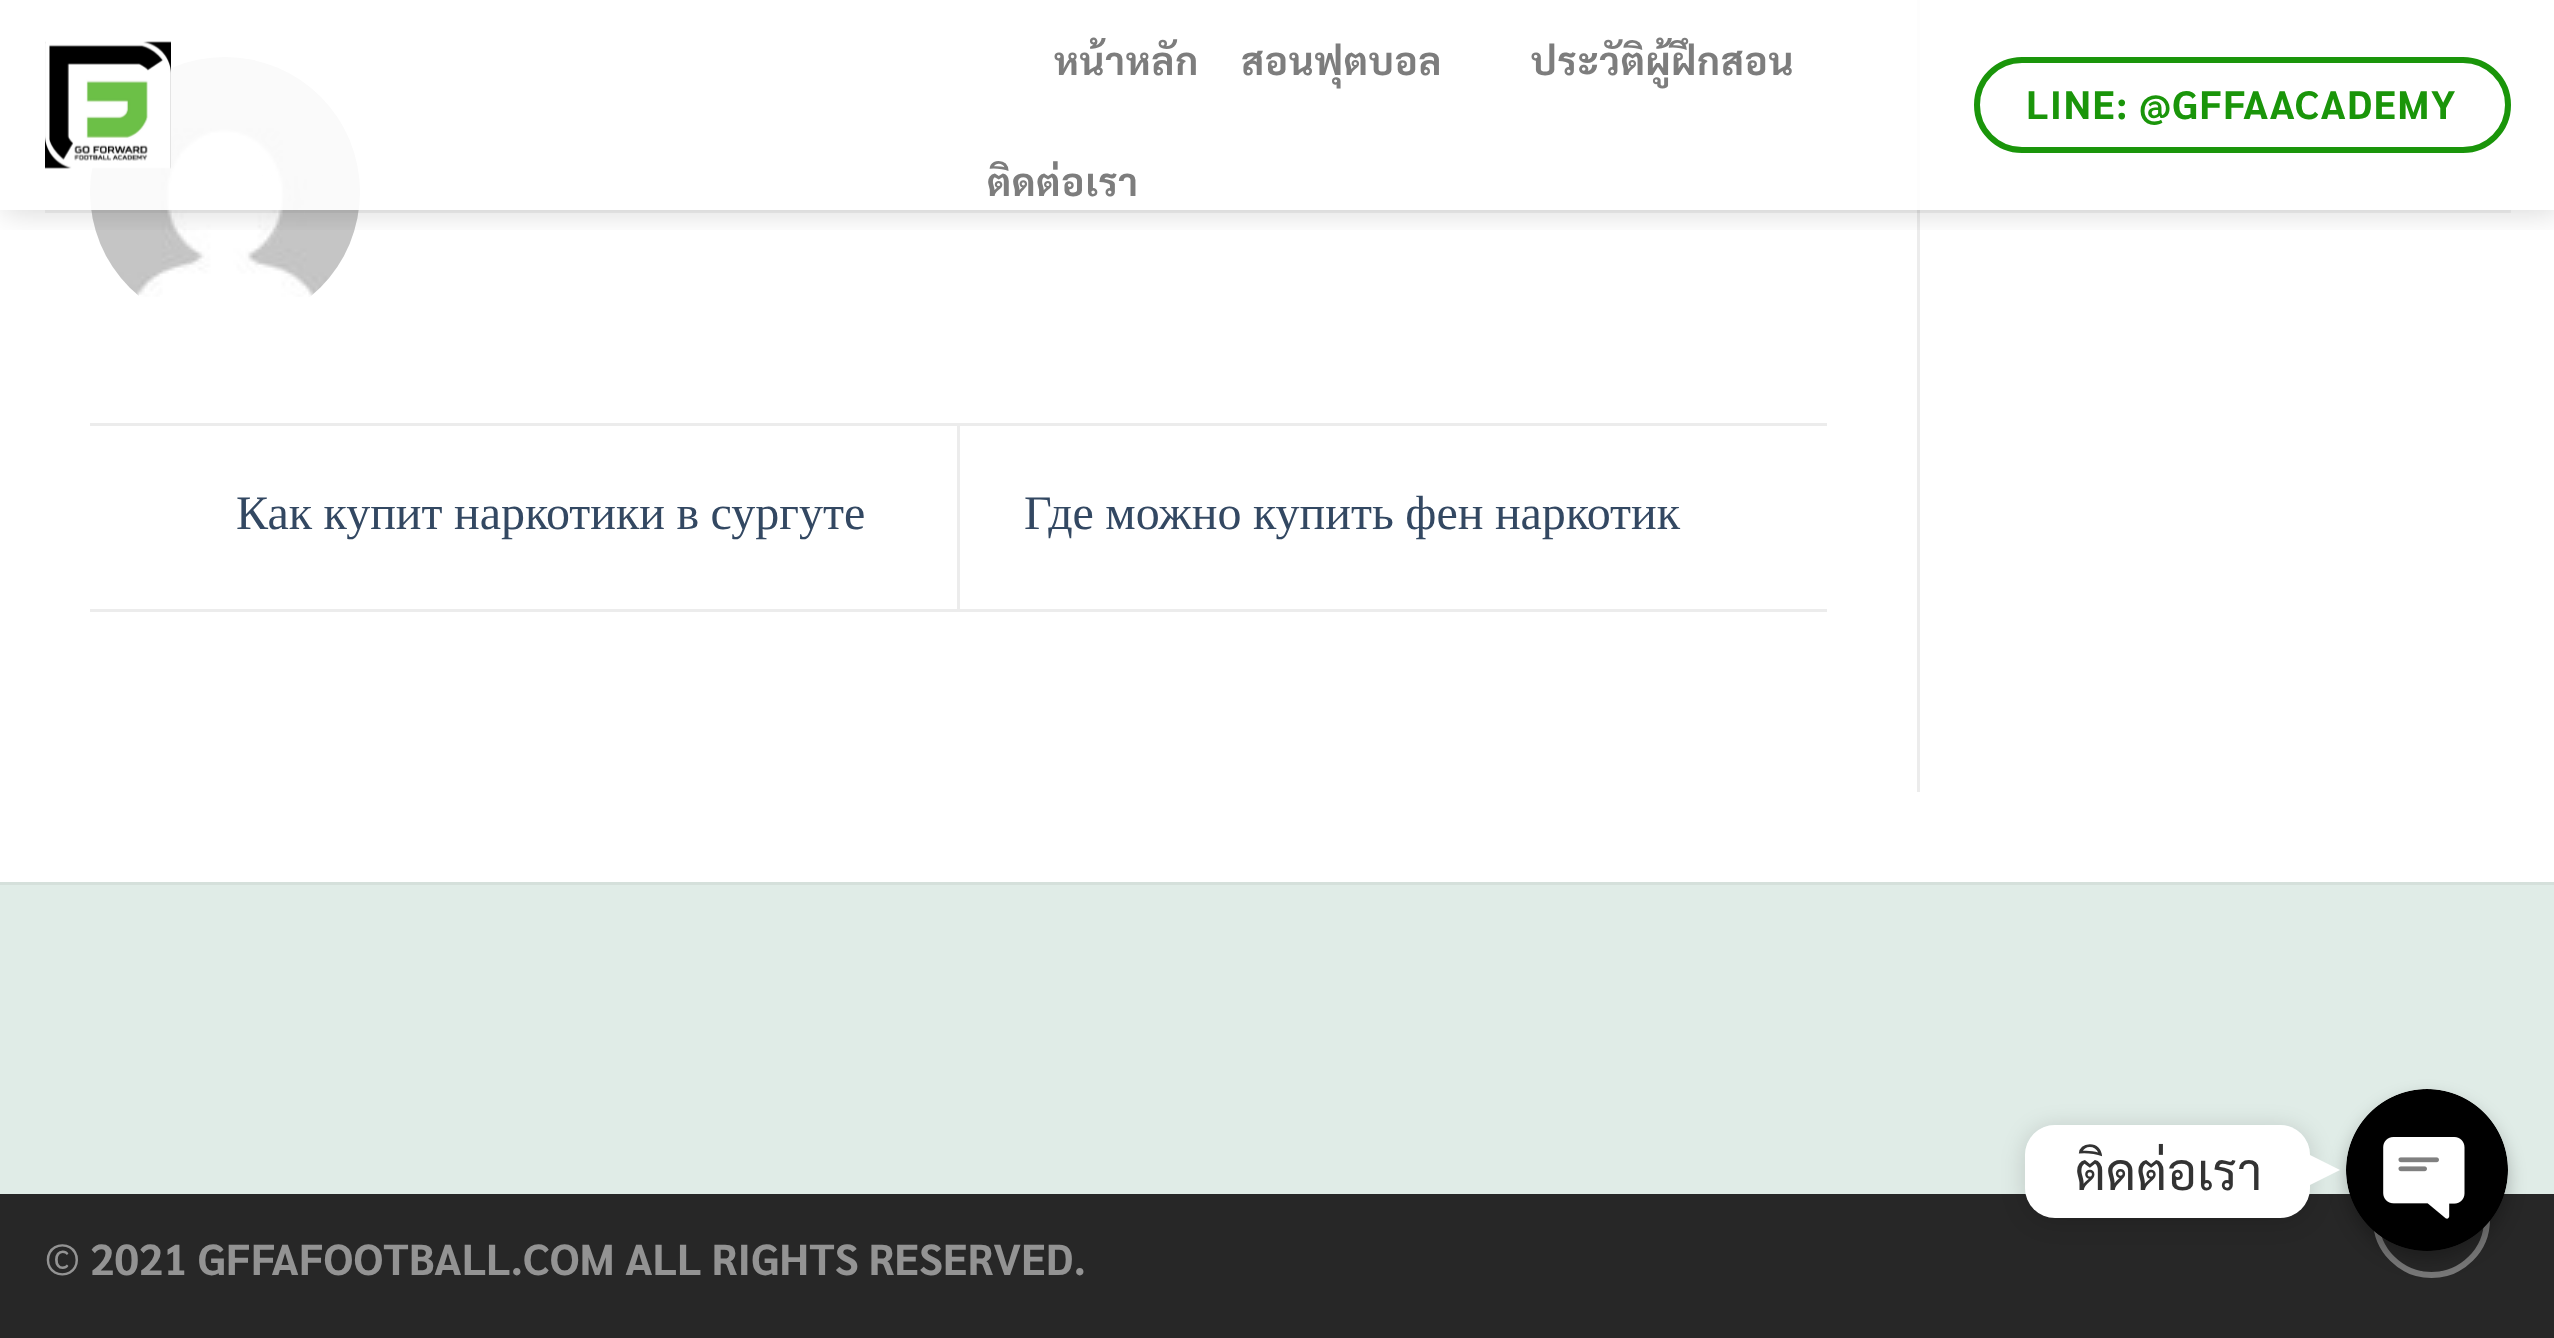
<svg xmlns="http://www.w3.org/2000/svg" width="2554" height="1338">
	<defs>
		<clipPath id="clip1"><rect x="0" y="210" width="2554" height="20" /></clipPath>
		<clipPath id="clip2"><path d="M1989 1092H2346V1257H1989ZM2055 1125H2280C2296.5 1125 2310 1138.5 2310 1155V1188C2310 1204.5 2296.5 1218 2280 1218H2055C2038.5 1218 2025 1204.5 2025 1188V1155C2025 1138.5 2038.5 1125 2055 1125Z" clip-rule="evenodd" /></clipPath>
	</defs>
	<rect width="100%" height="100%" fill="#FFFFFF" />
	<image x="90" y="57" width="270" height="240" href="assets/img2.png" />
	<rect x="1917" y="0" width="3" height="792" fill="#ECECEC" />
	<g clip-path="url(#clip1)">
		<rect x="3" y="3" width="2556" height="210" fill="#000000" fill-opacity="0.15" filter="blur(15px)" />
	</g>
	<rect x="90" y="0" width="1830" height="210" fill="#FFFFFF" fill-opacity="0.9" />
	<image x="45" y="41" width="126" height="128" href="assets/img1.png" />
	<g font-family="Sarabun" font-size="38.5" font-weight="700" letter-spacing="0.75" fill="#7D7D7D">
		<text x="1054" y="75">หน้าหลัก</text>
		<text x="1241" y="75">สอนฟุตบอล</text>
		<text x="1531" y="75">ประวัติผู้ฝึกสอน</text>
		<text x="987" y="196">ติดต่อเรา</text>
	</g>
	<rect x="1977" y="60" width="531" height="90" rx="45" fill="none" stroke="#1A950A" stroke-width="6" />
	<text x="2026" y="119" font-family="Sarabun" font-size="39.5" font-weight="700" letter-spacing="1.2" fill="#1A950A">LINE: @GFFAACADEMY</text>
	<rect x="45" y="210" width="2466" height="3" fill="#777777" fill-opacity="0.1" />
	<rect x="90" y="423" width="1737" height="3" fill="#ECECEC" />
	<rect x="90" y="609" width="1737" height="3" fill="#ECECEC" />
	<text x="236" y="529" word-spacing="-0.5" font-family="Liberation Serif" font-size="48" fill="#334862">Как купит наркотики в сургуте</text>
	<rect x="957" y="426" width="3" height="183" fill="#ECECEC" />
	<text x="1024" y="529" word-spacing="-0.5" font-family="Liberation Serif" font-size="48" fill="#334862">Где можно купить фен наркотик</text>
	<rect x="0" y="885" width="2554" height="309" fill="#E0ECE7" />
	<rect x="0" y="882" width="2554" height="3" fill="#D5E0DB" />
	<rect x="0" y="1194" width="2554" height="144" fill="#272727" />
	<text x="45" y="1275" font-family="Sarabun" font-size="43.2" fill="#939393">©</text>
	<text x="90" y="1275" font-family="Sarabun" font-size="43.2" font-weight="700" fill="#939393">2021 GFFAFOOTBALL.COM ALL RIGHTS RESERVED.</text>
	<circle cx="2431.5" cy="1219.5" r="55.5" fill="none" stroke="#777777" stroke-width="6" />
	<g clip-path="url(#clip2)">
		<rect x="2025" y="1128" width="285" height="93" rx="30" fill="#000000" fill-opacity="0.15" filter="blur(11.5px)" />
	</g>
	<rect x="2025" y="1125" width="285" height="93" rx="30" fill="#FFFFFF" />
	<text x="2075" y="1190" font-family="Sarabun" font-size="51" fill="#333333">ติดต่อเรา</text>
	<rect x="2346" y="1098" width="162" height="162" rx="81" fill="#000000" fill-opacity="0.25" filter="blur(9px)" />
	<image x="2346" y="1089" width="162" height="162" href="assets/img3.png" />
	<path d="M2310 1185V1155L2340 1170Z" fill="#FFFFFF" />
</svg>
